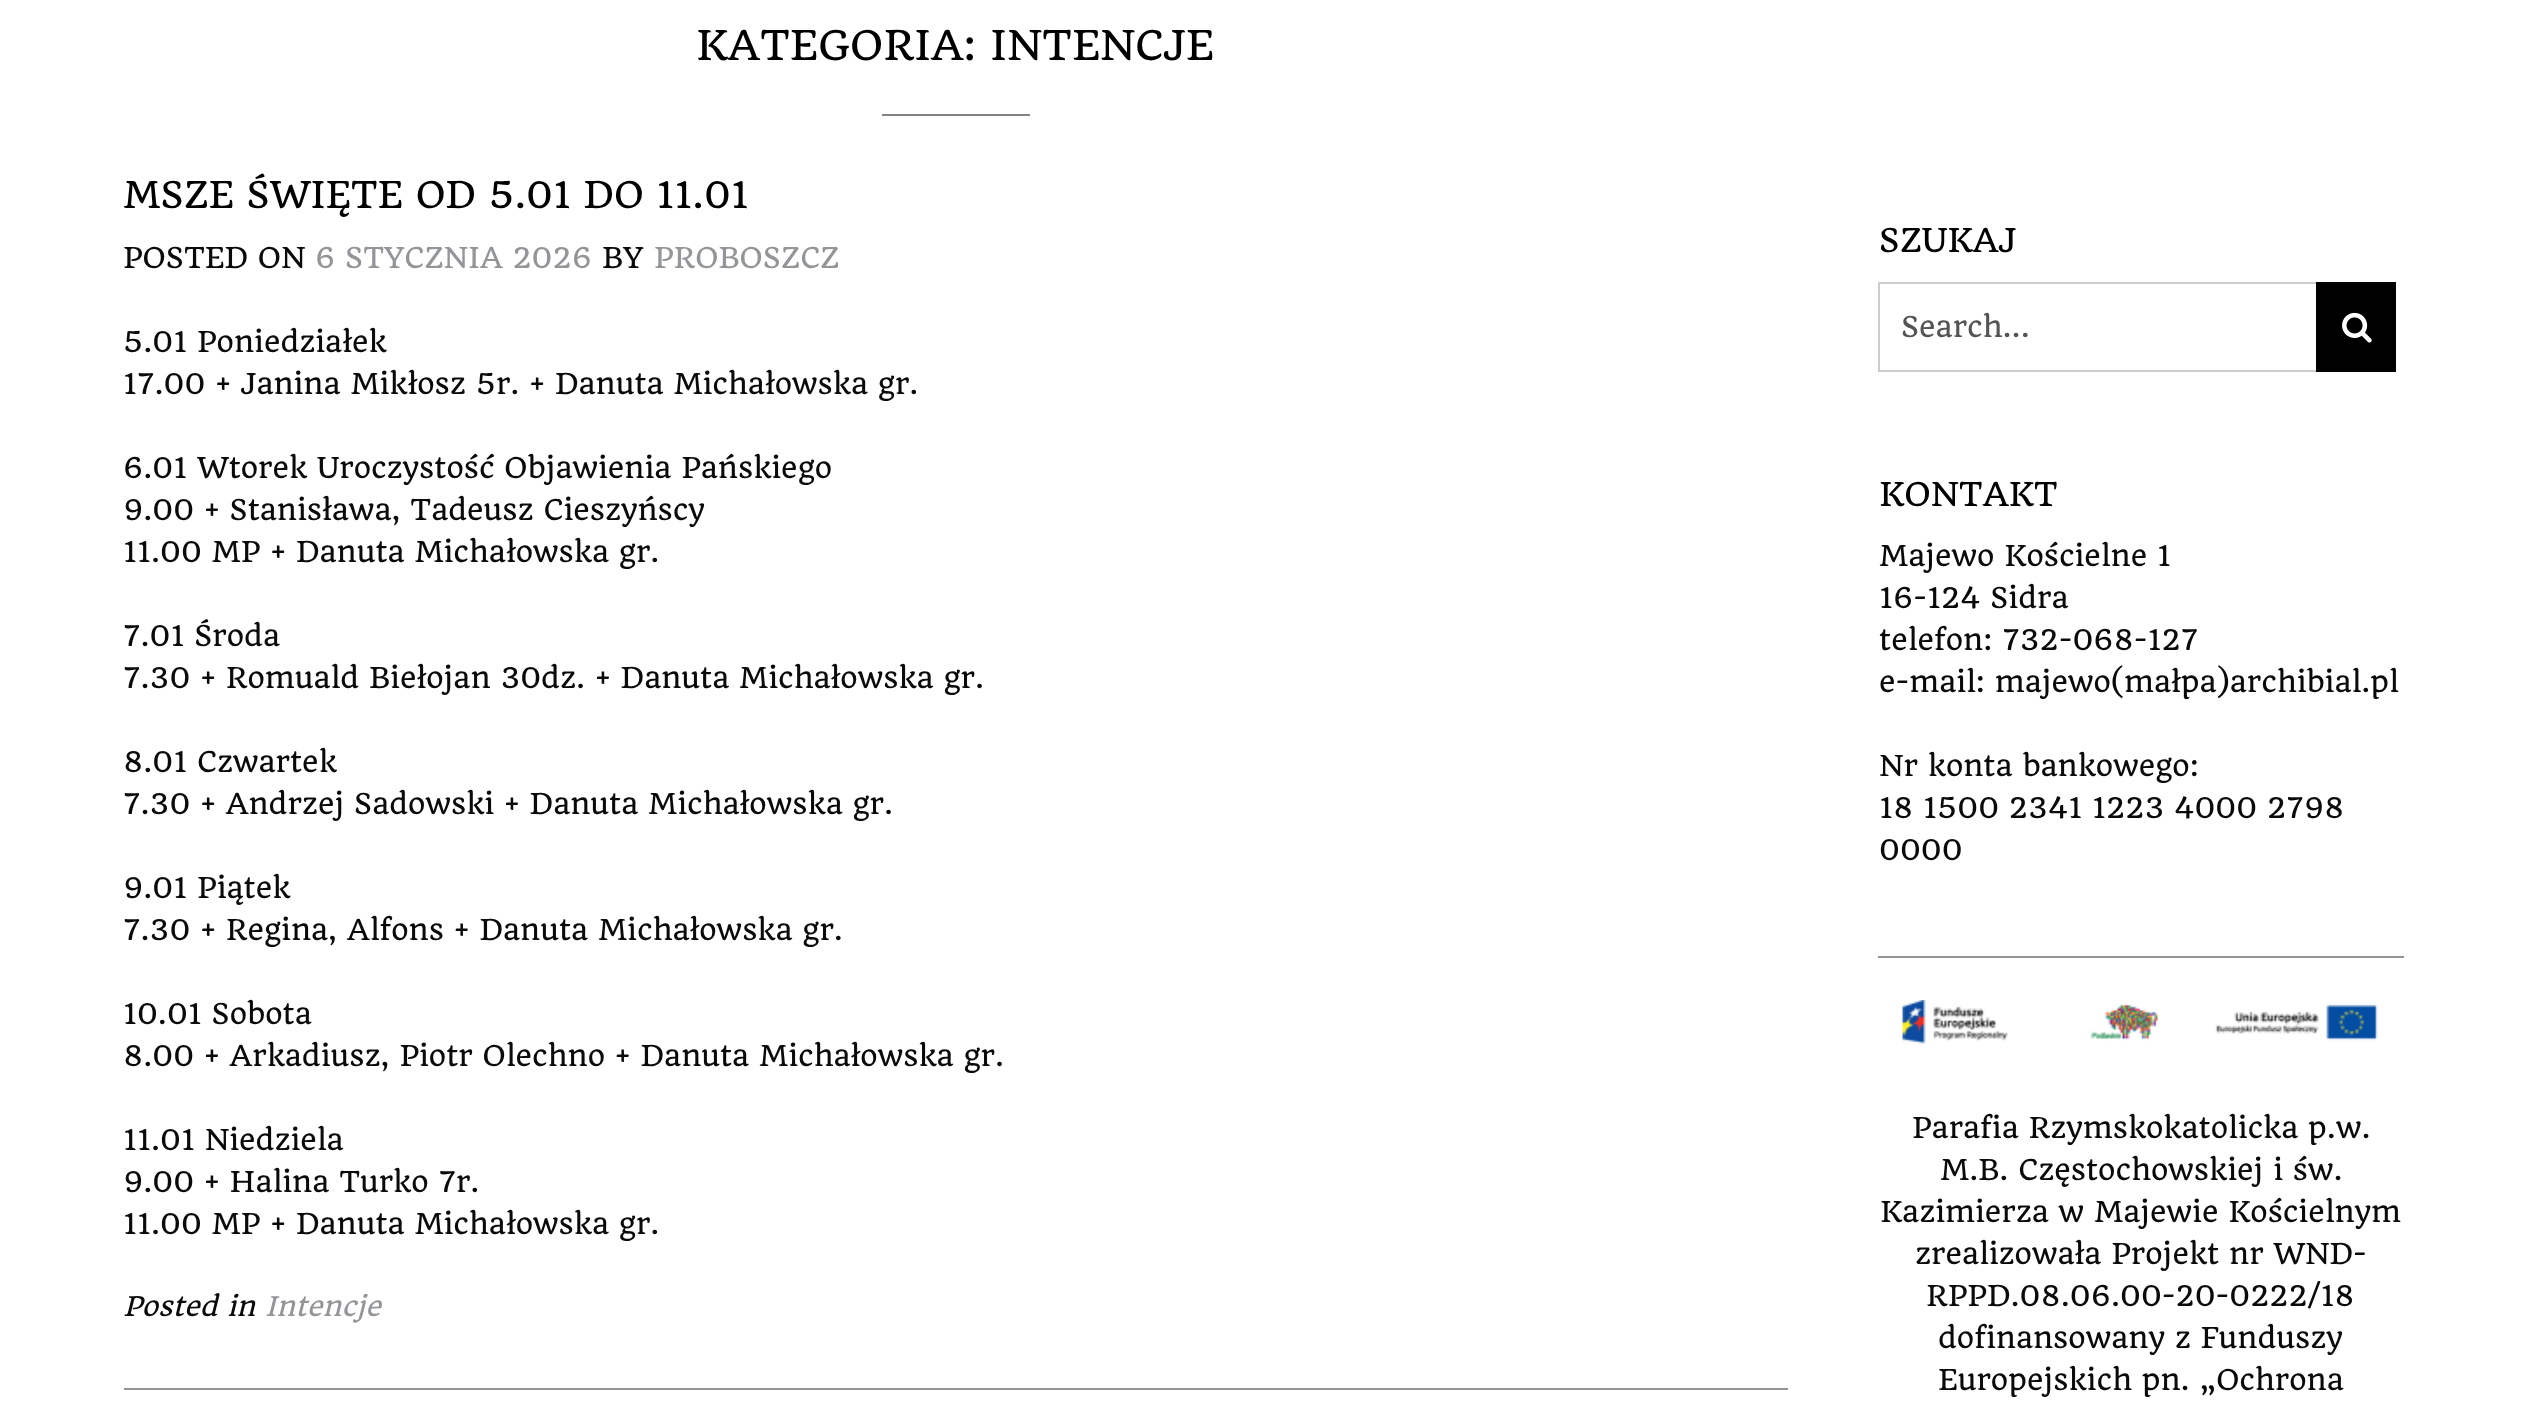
<svg xmlns="http://www.w3.org/2000/svg" width="2525" height="1424">
	<rect width="100%" height="100%" fill="#FFFFFF" />
	<rect x="882" y="114" width="148" height="2" fill="#828387" />
	<text x="696" y="60" font-family="Quando" font-size="40" fill="#000000">KATEGORIA: INTENCJE</text>
	<rect x="124" y="1388" width="1664" height="2" fill="#939598" />
	<text x="123" y="208" font-family="Quando" font-size="36" fill="#000000">MSZE ŚWIĘTE OD 5.01 DO 11.01</text>
	<text x="123" y="268" font-family="Quando" font-size="28" fill="#0A0A0A">POSTED ON</text>
	<text x="315" y="268" font-family="Quando" font-size="28" fill="#939598">6 STYCZNIA 2026</text>
	<text x="602" y="268" font-family="Quando" font-size="28" fill="#0A0A0A">BY</text>
	<text x="654" y="268" font-family="Quando" font-size="28" fill="#939598">PROBOSZCZ</text>
	<g font-family="Quando" font-size="28" fill="#0A0A0A">
		<text x="123" y="352">5.01 Poniedziałek</text>
		<text x="123" y="394">17.00 + Janina Mikłosz 5r. + Danuta Michałowska gr.</text>
		<text x="123" y="478">6.01 Wtorek Uroczystość Objawienia Pańskiego</text>
		<text x="123" y="520">9.00 + Stanisława, Tadeusz Cieszyńscy</text>
		<text x="123" y="562">11.00 MP + Danuta Michałowska gr.</text>
		<text x="123" y="646">7.01 Środa</text>
		<text x="123" y="688">7.30 + Romuald Biełojan 30dz. + Danuta Michałowska gr.</text>
		<text x="123" y="772">8.01 Czwartek</text>
		<text x="123" y="814">7.30 + Andrzej Sadowski + Danuta Michałowska gr.</text>
		<text x="123" y="898">9.01 Piątek</text>
		<text x="123" y="940">7.30 + Regina, Alfons + Danuta Michałowska gr.</text>
		<text x="123" y="1024">10.01 Sobota</text>
		<text x="123" y="1066">8.00 + Arkadiusz, Piotr Olechno + Danuta Michałowska gr.</text>
		<text x="123" y="1150">11.01 Niedziela</text>
		<text x="123" y="1192">9.00 + Halina Turko 7r.</text>
		<text x="123" y="1234">11.00 MP + Danuta Michałowska gr.</text>
	</g>
	<text x="123" y="1316" font-family="Quando" font-size="26.5" font-style="italic" fill="#0A0A0A">Posted in</text>
	<text x="265" y="1316" font-family="Quando" font-size="26.5" font-style="italic" fill="#939598">Intencje</text>
	<text x="1879" y="252" font-family="Quando" font-size="32" fill="#000000">SZUKAJ</text>
	<rect x="1878" y="282" width="438" height="2" fill="#CCCCCC" />
	<rect x="1878" y="370" width="438" height="2" fill="#CCCCCC" />
	<rect x="1878" y="282" width="2" height="90" fill="#CCCCCC" />
	<text x="1901" y="337" font-family="Quando" font-size="28" fill="#545454">Search...</text>
	<rect x="2316" y="282" width="80" height="90" fill="#000000" />
	<image x="2342" y="312" width="30" height="31" href="assets/img1.png" />
	<rect x="1878" y="956" width="526" height="2" fill="#939598" />
	<text x="1879" y="506" font-family="Quando" font-size="32" fill="#000000">KONTAKT</text>
	<g font-family="Quando" font-size="28" fill="#0A0A0A">
		<text x="1879" y="566">Majewo Kościelne 1</text>
		<text x="1879" y="608">16-124 Sidra</text>
		<text x="1879" y="650">telefon: 732-068-127</text>
		<text x="1879" y="692">e-mail: majewo(małpa)archibial.pl</text>
		<text x="1879" y="776">Nr konta bankowego:</text>
		<text x="1879" y="818">18 1500 2341 1223 4000 2798</text>
		<text x="1879" y="860">0000</text>
	</g>
	<image x="1902" y="1000" width="476" height="44" href="assets/img2.png" />
	<g font-family="Quando" font-size="28" fill="#0A0A0A">
		<text x="1912" y="1138">Parafia Rzymskokatolicka p.w.</text>
		<text x="1940" y="1180">M.B. Częstochowskiej i św.</text>
		<text x="1880" y="1222">Kazimierza w Majewie Kościelnym</text>
		<text x="1915" y="1264">zrealizowała Projekt nr WND-</text>
		<text x="1926" y="1306">RPPD.08.06.00-20-0222/18</text>
		<text x="1938" y="1348">dofinansowany z Funduszy</text>
		<text x="1938" y="1390">Europejskich pn. „Ochrona</text>
	</g>
</svg>
